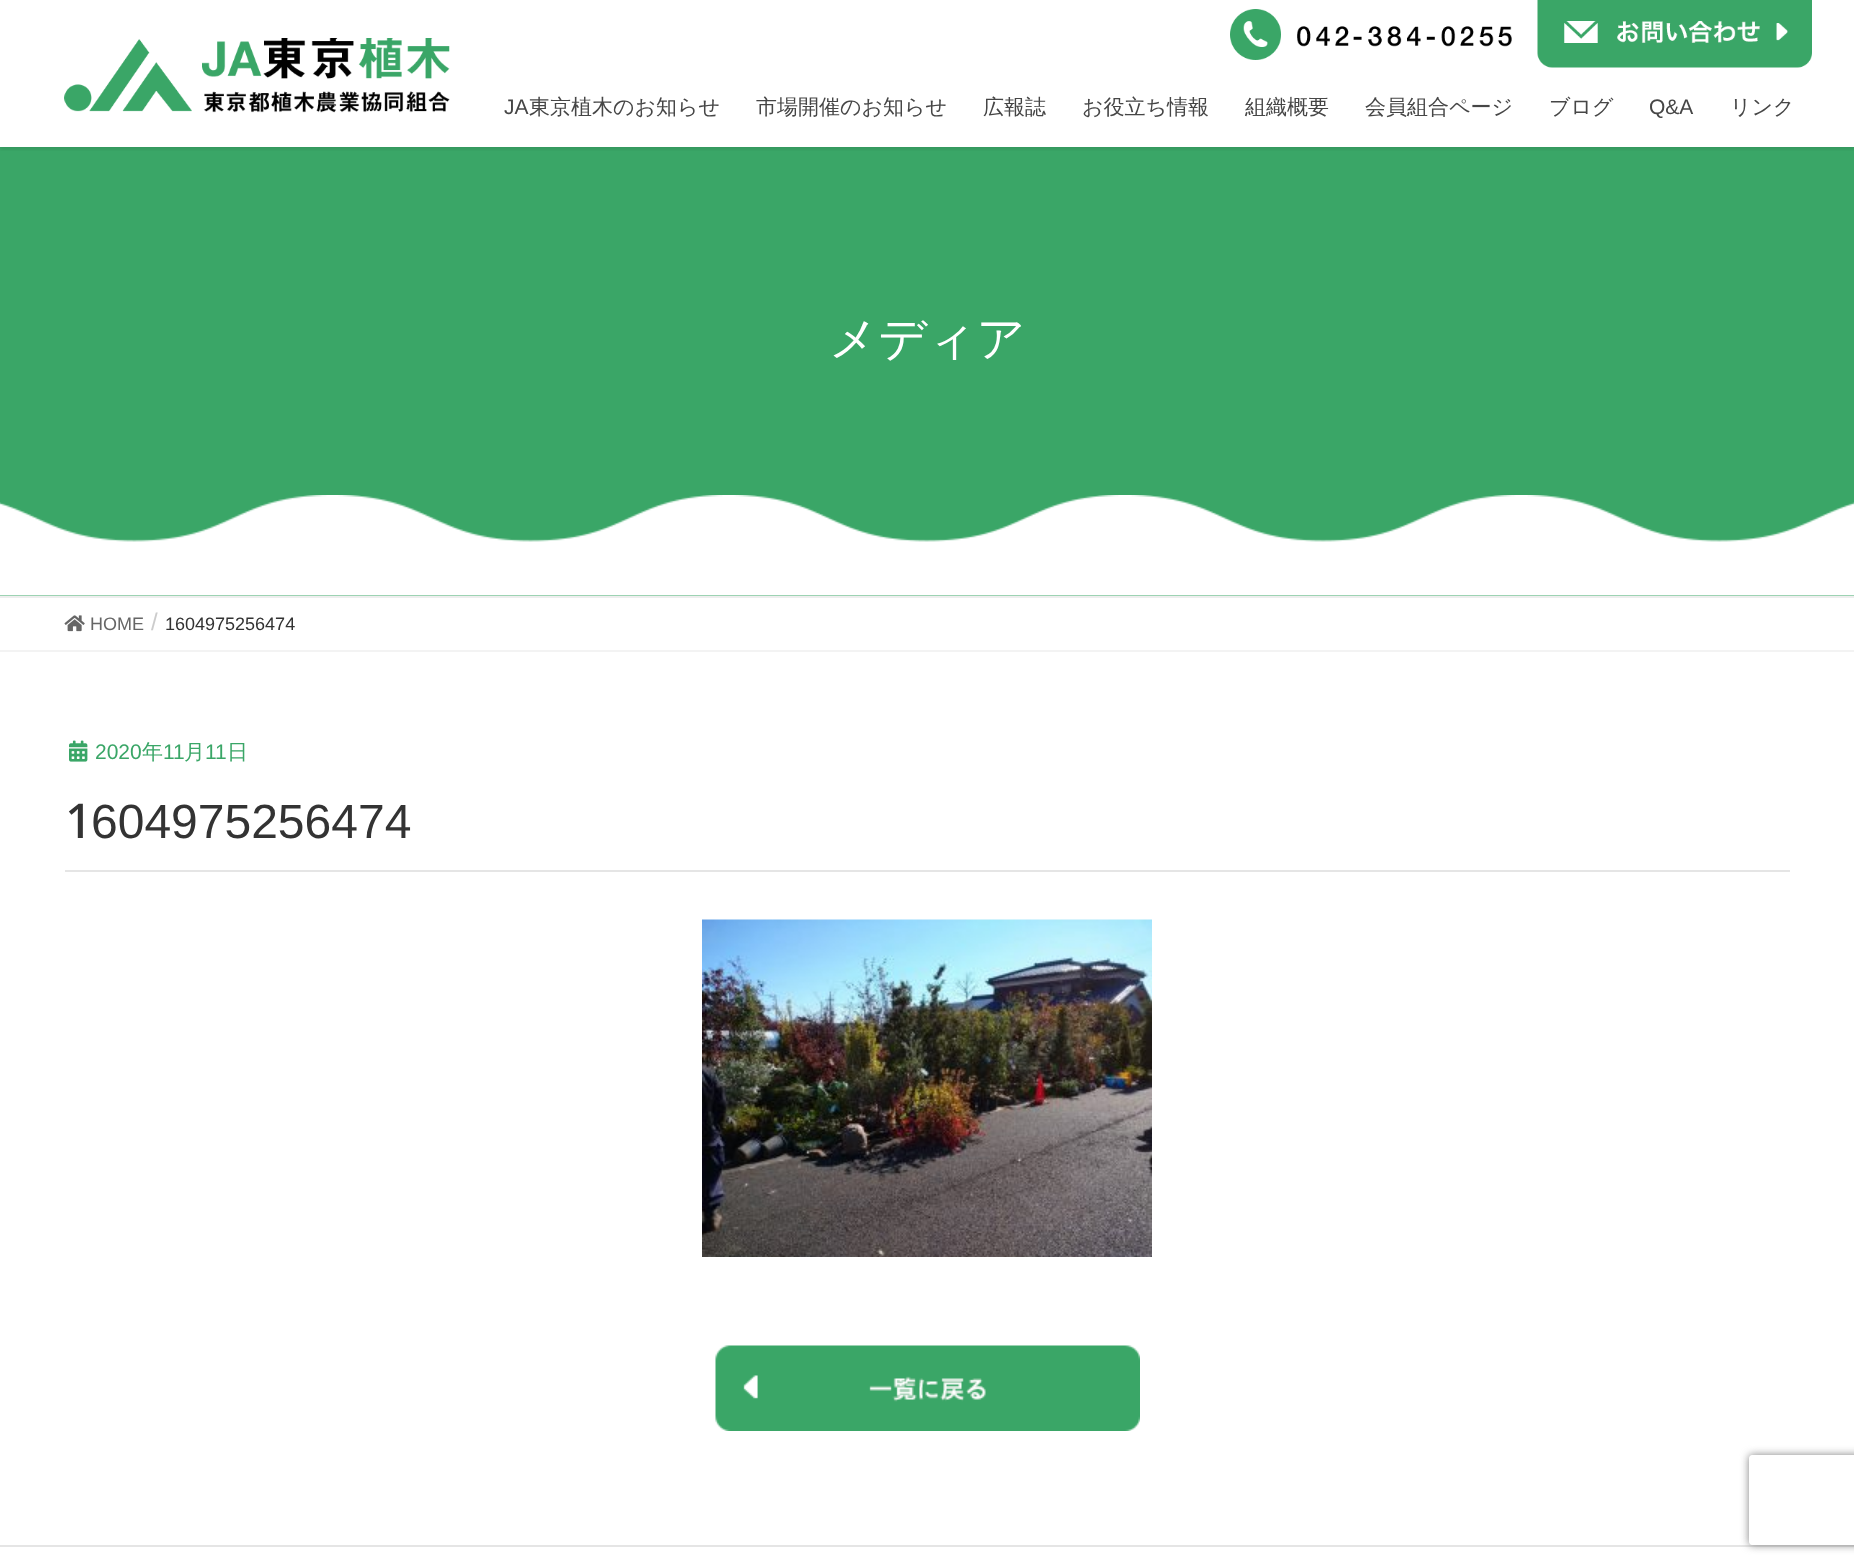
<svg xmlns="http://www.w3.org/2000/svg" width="1854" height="1566">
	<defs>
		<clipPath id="clip1"><rect x="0" y="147" width="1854" height="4" /></clipPath>
		<clipPath id="clip2"><path d="M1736 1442H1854V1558H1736ZM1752 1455H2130C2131.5 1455 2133 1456.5 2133 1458V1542C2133 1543.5 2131.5 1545 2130 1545H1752C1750.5 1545 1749 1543.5 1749 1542V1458C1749 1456.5 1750.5 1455 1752 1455Z" clip-rule="evenodd" /></clipPath>
	</defs>
	<rect width="100%" height="100%" fill="#FFFFFF" />
	<rect x="0" y="147" width="1854" height="449" fill="#3AA667" />
	<g clip-path="url(#clip1)">
		<rect x="0" y="2" width="1854" height="147" fill="#000000" fill-opacity="0.1" filter="blur(2px)" />
	</g>
	<image x="64" y="38" width="386" height="75" href="assets/img1.png" />
	<image x="1230" y="9" width="282" height="51" href="assets/img2.png" />
	<image x="1537" y="0" width="275" height="68" href="assets/img3.png" />
	<text x="504" y="114" font-family="Liberation Sans" font-size="21" fill="#464646">JA</text>
	<g font-family="WenQuanYi Zen Hei" font-size="21" font-weight="500" fill="#464646">
		<text x="529" y="114">東京植木のお知らせ</text>
		<text x="756" y="114">市場開催のお知らせ</text>
		<text x="983" y="114">広報誌</text>
		<text x="1082" y="114">お役立ち情報</text>
		<text x="1245" y="114">組織概要</text>
		<text x="1365" y="114">会員組合ページ</text>
		<text x="1549" y="114">ブログ</text>
	</g>
	<text x="1649" y="114" font-family="Liberation Sans" font-size="21" fill="#464646">Q&amp;A</text>
	<text x="1730" y="114" font-family="WenQuanYi Zen Hei" font-size="21" font-weight="500" fill="#464646">リンク</text>
	<rect x="0" y="596" width="1854" height="2" fill="#EEEEEE" />
	<text x="829" y="355" font-family="WenQuanYi Zen Hei" font-size="48" font-weight="500" fill="#FFFFFF">メディア</text>
	<image x="0" y="495" width="1854" height="101" href="assets/img4.png" />
	<rect x="0" y="650" width="1854" height="2" fill="#F3F3F3" />
	<image x="64" y="615" width="21" height="17" href="assets/img5.png" />
	<text x="90" y="630" font-family="Liberation Sans" font-size="18" fill="#666666">HOME</text>
	<text x="151" y="630" font-family="Liberation Sans" font-size="24" fill="#CCCCCC">/</text>
	<text x="165" y="630" font-family="Liberation Sans" font-size="18" fill="#333333">1604975256474</text>
	<rect x="65" y="870" width="1725" height="2" fill="#E5E5E5" />
	<image x="69" y="740" width="19" height="22" href="assets/img6.png" />
	<text x="95" y="759" font-family="Liberation Sans" font-size="21" fill="#3AA667">2020</text>
	<text x="142" y="759" font-family="WenQuanYi Zen Hei" font-size="21" font-weight="500" fill="#3AA667">年</text>
	<text x="163" y="759" font-family="Liberation Sans" font-size="21" fill="#3AA667">11</text>
	<text x="184" y="759" font-family="WenQuanYi Zen Hei" font-size="21" font-weight="500" fill="#3AA667">月</text>
	<text x="205" y="759" font-family="Liberation Sans" font-size="21" fill="#3AA667">11</text>
	<text x="227" y="759" font-family="WenQuanYi Zen Hei" font-size="21" font-weight="500" fill="#3AA667">日</text>
	<text x="65" y="838" font-family="Noto Sans" font-size="48" font-weight="500" fill="#333333">1</text>
	<text x="91" y="838" font-family="Liberation Sans" font-size="48" fill="#333333">604975256474</text>
	<image x="702" y="919" width="450" height="338" href="assets/img7.png" />
	<image x="715" y="1345" width="425" height="86" href="assets/img8.png" />
	<rect x="0" y="1545" width="1854" height="2" fill="#E5E5E5" />
	<g clip-path="url(#clip2)">
		<rect x="1749" y="1455" width="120" height="90" rx="3" fill="#808080" filter="blur(4px)" />
	</g>
</svg>
